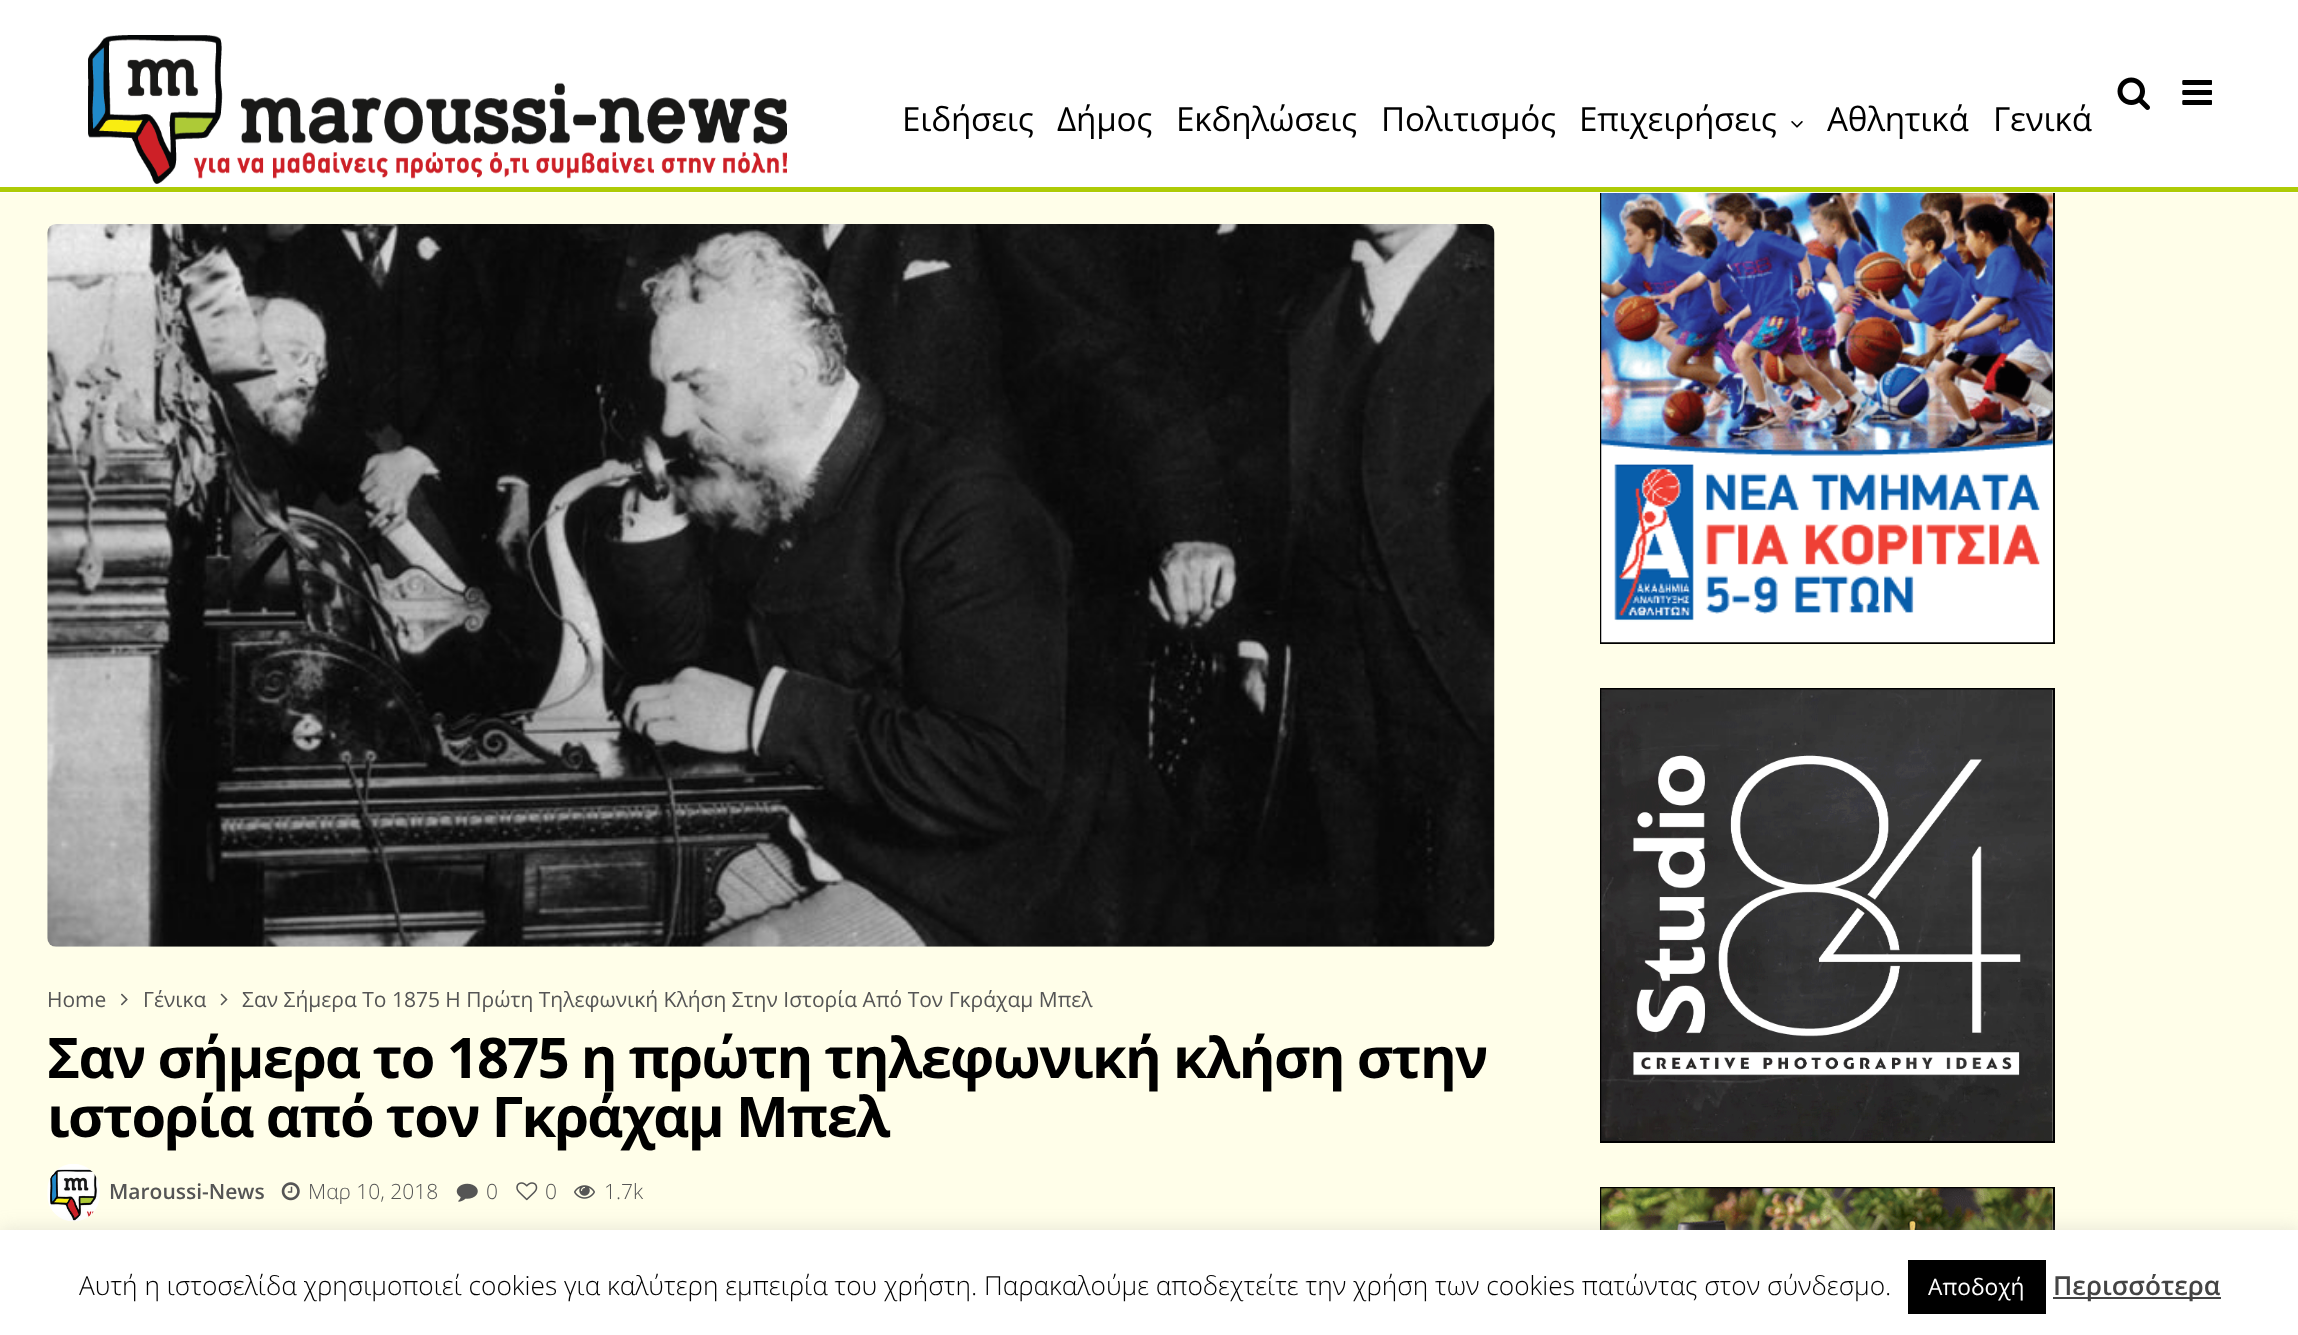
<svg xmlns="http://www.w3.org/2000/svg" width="2298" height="1335">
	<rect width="100%" height="100%" fill="#FFFEE9" />
	<rect x="1601" y="190" width="453" height="453" fill="none" stroke="#000000" stroke-width="2" />
	<rect x="0" y="0" width="2298" height="193" fill="#FFFFFF" />
	<rect x="0" y="187" width="2298" height="5" fill="#AECB06" />
	<image x="88" y="35" width="699" height="149" href="assets/img1.png" />
	<image x="2117" y="77" width="33" height="33" href="assets/img2.png" />
	<image x="2182" y="80" width="30" height="25" href="assets/img3.png" />
	<g font-family="Open Sans" font-size="33.25" letter-spacing="-0.25" fill="#000000">
		<text x="902" y="131">Ειδήσεις</text>
		<text x="1057" y="131">Δήμος</text>
		<text x="1176" y="131">Εκδηλώσεις</text>
		<text x="1381" y="131">Πολιτισμός</text>
		<text x="1579" y="131">Επιχειρήσεις</text>
	</g>
	<image x="1791" y="121" width="12" height="7" href="assets/img4.png" />
	<g font-family="Open Sans" font-size="33.25" letter-spacing="-0.25" fill="#000000">
		<text x="1827" y="131">Αθλητικά</text>
		<text x="1993" y="131">Γενικά</text>
	</g>
	<image x="47" y="224" width="1448" height="723" href="assets/img5.png" />
	<text x="47" y="1007" font-family="Open Sans" font-size="21" fill="#555555">Home</text>
	<image x="121" y="993" width="7" height="13" href="assets/img6.png" />
	<text x="143" y="1007" font-family="Open Sans" font-size="21" fill="#555555">Γένικα</text>
	<image x="220" y="993" width="8" height="13" href="assets/img7.png" />
	<text x="242" y="1007" font-family="Open Sans" font-size="21" fill="#555555">Σαν Σήμερα Το 1875 Η Πρώτη Τηλεφωνική Κλήση Στην Ιστορία Από Τον Γκράχαμ Μπελ</text>
	<g font-family="Open Sans" font-size="56" font-weight="700" letter-spacing="-1.7" fill="#000000">
		<text x="47" y="1078">Σαν σήμερα το 1875 η πρώτη τηλεφωνική κλήση στην</text>
		<text x="47" y="1137">ιστορία από τον Γκράχαμ Μπελ</text>
	</g>
	<image x="47" y="1164" width="53" height="58" href="assets/img8.png" />
	<text x="109" y="1199" font-family="Open Sans" font-size="21" font-weight="600" fill="#555555">Maroussi-News</text>
	<image x="281" y="1182" width="19" height="19" href="assets/img9.png" />
	<text x="308" y="1199" font-family="Open Sans" font-size="21" font-weight="300" fill="#555555">Μαρ 10, 2018</text>
	<image x="456" y="1183" width="22" height="19" href="assets/img10.png" />
	<text x="486" y="1199" font-family="Open Sans" font-size="21" font-weight="300" fill="#555555">0</text>
	<image x="516" y="1182" width="22" height="19" href="assets/img11.png" />
	<text x="545" y="1199" font-family="Open Sans" font-size="21" font-weight="300" fill="#555555">0</text>
	<image x="574" y="1185" width="21" height="14" href="assets/img12.png" />
	<text x="604" y="1199" font-family="Open Sans" font-size="21" font-weight="300" fill="#555555">1.7k</text>
	<image x="1601" y="193" width="452" height="450" href="assets/img13.png" />
	<rect x="1601" y="689" width="453" height="453" fill="none" stroke="#000000" stroke-width="2" />
	<image x="1601" y="689" width="452" height="452" href="assets/img14.png" />
	<rect x="1601" y="1188" width="453" height="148" fill="none" stroke="#000000" stroke-width="2" />
	<image x="1601" y="1188" width="452" height="42" href="assets/img15.png" />
	<rect x="0" y="1229" width="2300" height="105" fill="#ACABAB" fill-opacity="0.3" filter="blur(9px)" />
	<rect x="0" y="1230" width="2298" height="105" fill="#FFFFFF" />
	<text x="79" y="1295" font-family="Open Sans" font-size="26.25" font-weight="300" fill="#000000">Αυτή η ιστοσελίδα χρησιμοποιεί cookies για καλύτερη εμπειρία του χρήστη. Παρακαλούμε αποδεχτείτε την χρήση των cookies πατώντας στον σύνδεσμο.</text>
	<rect x="1908" y="1260" width="138" height="54" fill="#000000" />
	<text x="1928" y="1295" font-family="Open Sans" font-size="22.75" fill="#FFFFFF">Αποδοχή</text>
	<rect x="2053" y="1297" width="168" height="2" fill="#444444" />
	<text x="2053" y="1295" font-family="Open Sans" font-size="26.25" font-weight="600" fill="#444444">Περισσότερα</text>
</svg>
